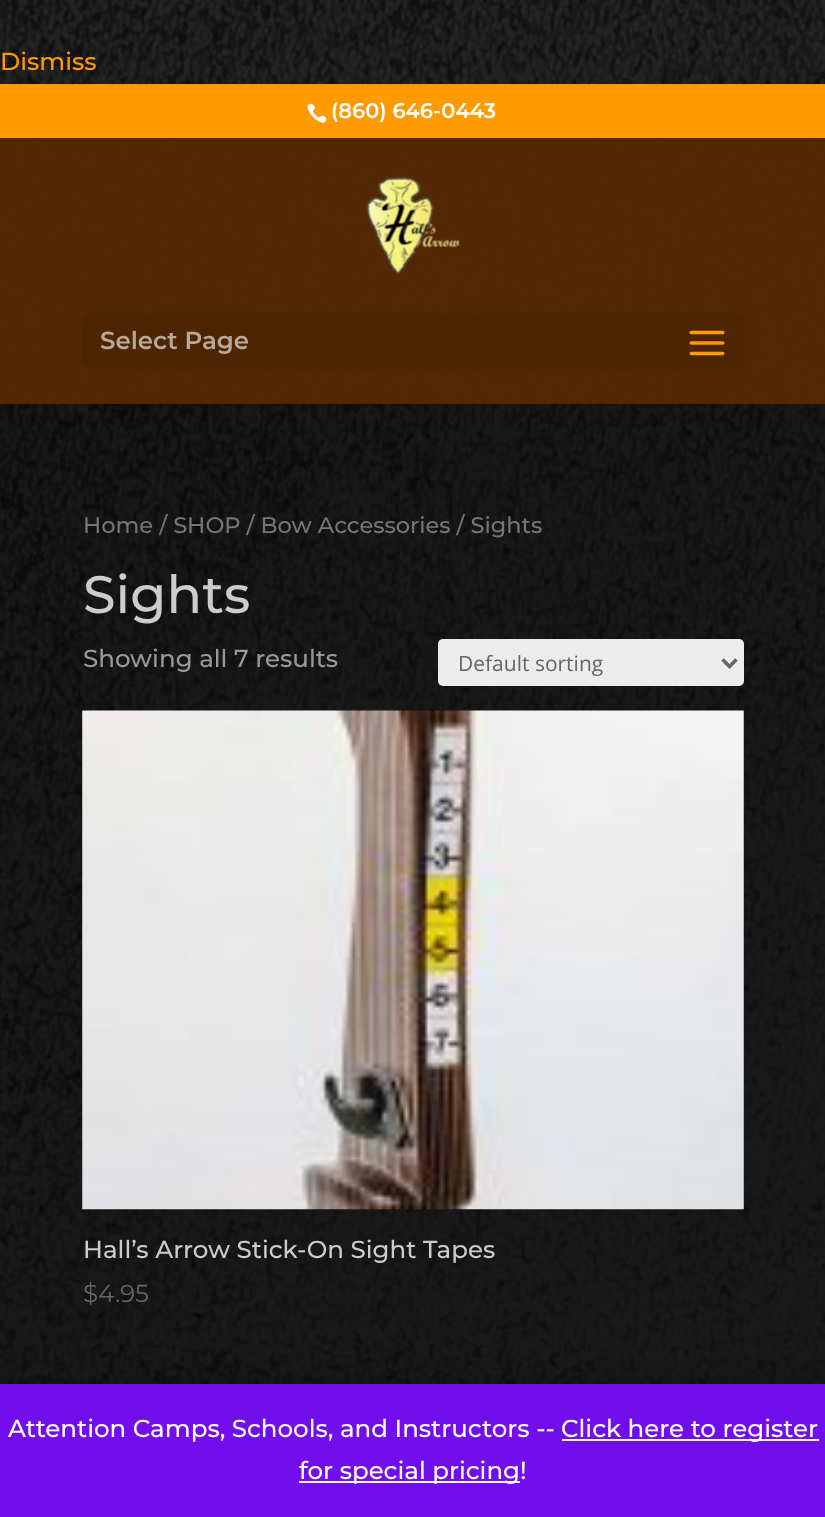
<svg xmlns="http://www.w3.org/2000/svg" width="825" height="1517">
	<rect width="100%" height="100%" fill="#FFFFFF" />
	<image x="0" y="0" width="825" height="1384" href="assets/img1.png" />
	<text x="0" y="70" font-family="Montserrat" font-size="24.5" font-weight="500" fill="#FF9A00">Dismiss</text>
	<rect x="0" y="84" width="825" height="54" fill="#FF9A00" />
	<image x="307" y="103" width="20" height="20" href="assets/img2.png" />
	<text x="331" y="118" font-family="Montserrat" font-size="21" font-weight="600" fill="#FFFFFF">(860) 646-0443</text>
	<rect x="0" y="404" width="825" height="980" fill="#000000" fill-opacity="0.3" />
	<rect x="100" y="404" width="627" height="2" fill="#000000" fill-opacity="0.1" />
	<rect x="0" y="138" width="825" height="266" fill="#562800" fill-opacity="0.94" />
	<image x="366" y="176" width="95" height="99" href="assets/img3.png" />
	<rect x="82" y="313" width="662" height="56" rx="9" fill="#4E2502" />
	<text x="100" y="349" font-family="Montserrat" font-size="24.5" font-weight="600" fill="#B8A89A">Select Page</text>
	<image x="689" y="330" width="36" height="26" href="assets/img4.png" />
	<text x="83" y="533" font-family="Montserrat" font-size="22.5" font-weight="500" fill="#767676">Home / SHOP / Bow Accessories / Sights</text>
	<text x="83" y="613" font-family="Montserrat" font-size="52.5" font-weight="500" fill="#CCCCCC">Sights</text>
	<text x="83" y="667" font-family="Montserrat" font-size="24.5" font-weight="500" fill="#999999">Showing all 7 results</text>
	<rect x="438" y="639" width="306" height="47" rx="5" fill="#ECECEC" />
	<path d="M722.5 659.5L729.5 666.5L736.5 659.5" fill="none" stroke="#666666" stroke-width="3.5" />
	<text x="458" y="671" font-family="Open Sans" font-size="21" fill="#666666">Default sorting</text>
	<image x="82" y="710" width="662" height="500" href="assets/img5.png" />
	<text x="83" y="1258" font-family="Montserrat" font-size="24.5" font-weight="500" fill="#CCCCCC">Hall’s Arrow Stick-On Sight Tapes</text>
	<text x="83" y="1302" font-family="Montserrat" font-size="24.5" fill="#666666">$4.95</text>
	<rect x="0" y="1386" width="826" height="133" fill="#000000" fill-opacity="0.2" filter="blur(12px)" />
	<rect x="0" y="1384" width="825" height="133" fill="#720EEC" />
	<text x="8" y="1437" font-family="Montserrat" font-size="24.5" font-weight="500" fill="#FFFFFF">Attention Camps, Schools, and Instructors --</text>
	<rect x="562" y="1439" width="257" height="2" fill="#FCFBFE" />
	<text x="561" y="1437" font-family="Montserrat" font-size="24.5" font-weight="500" fill="#FFFFFF">Click here to register</text>
	<rect x="299" y="1481" width="221" height="2" fill="#FCFBFE" />
	<text x="299" y="1479" font-family="Montserrat" font-size="24.5" font-weight="500" fill="#FFFFFF">for special pricing!</text>
</svg>
